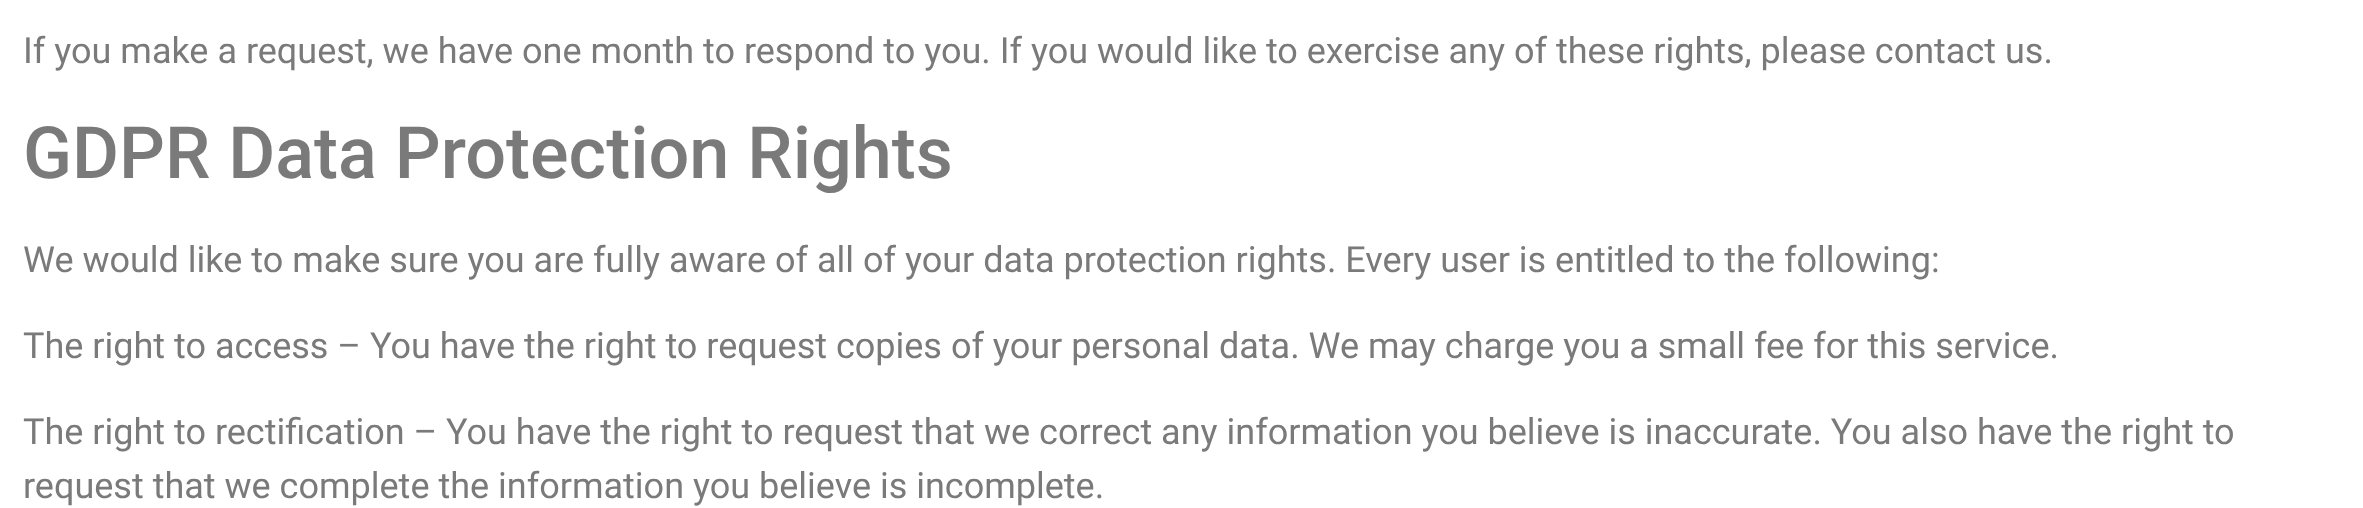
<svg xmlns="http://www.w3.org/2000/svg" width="2363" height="508">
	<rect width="100%" height="100%" fill="#FFFFFF" />
	<text x="23" y="63" font-family="Roboto" font-size="36" fill="#7A7A7A">If you make a request, we have one month to respond to you. If you would like to exercise any of these rights, please contact us.</text>
	<text x="23" y="178" font-family="Roboto" font-size="72" font-weight="500" fill="#7A7A7A">GDPR Data Protection Rights</text>
	<g font-family="Roboto" font-size="36" fill="#7A7A7A">
		<text x="23" y="272">We would like to make sure you are fully aware of all of your data protection rights. Every user is entitled to the following:</text>
		<text x="23" y="358">The right to access – You have the right to request copies of your personal data. We may charge you a small fee for this service.</text>
		<text x="23" y="444">The right to rectification – You have the right to request that we correct any information you believe is inaccurate. You also have the right to</text>
		<text x="23" y="498">request that we complete the information you believe is incomplete.</text>
	</g>
</svg>
